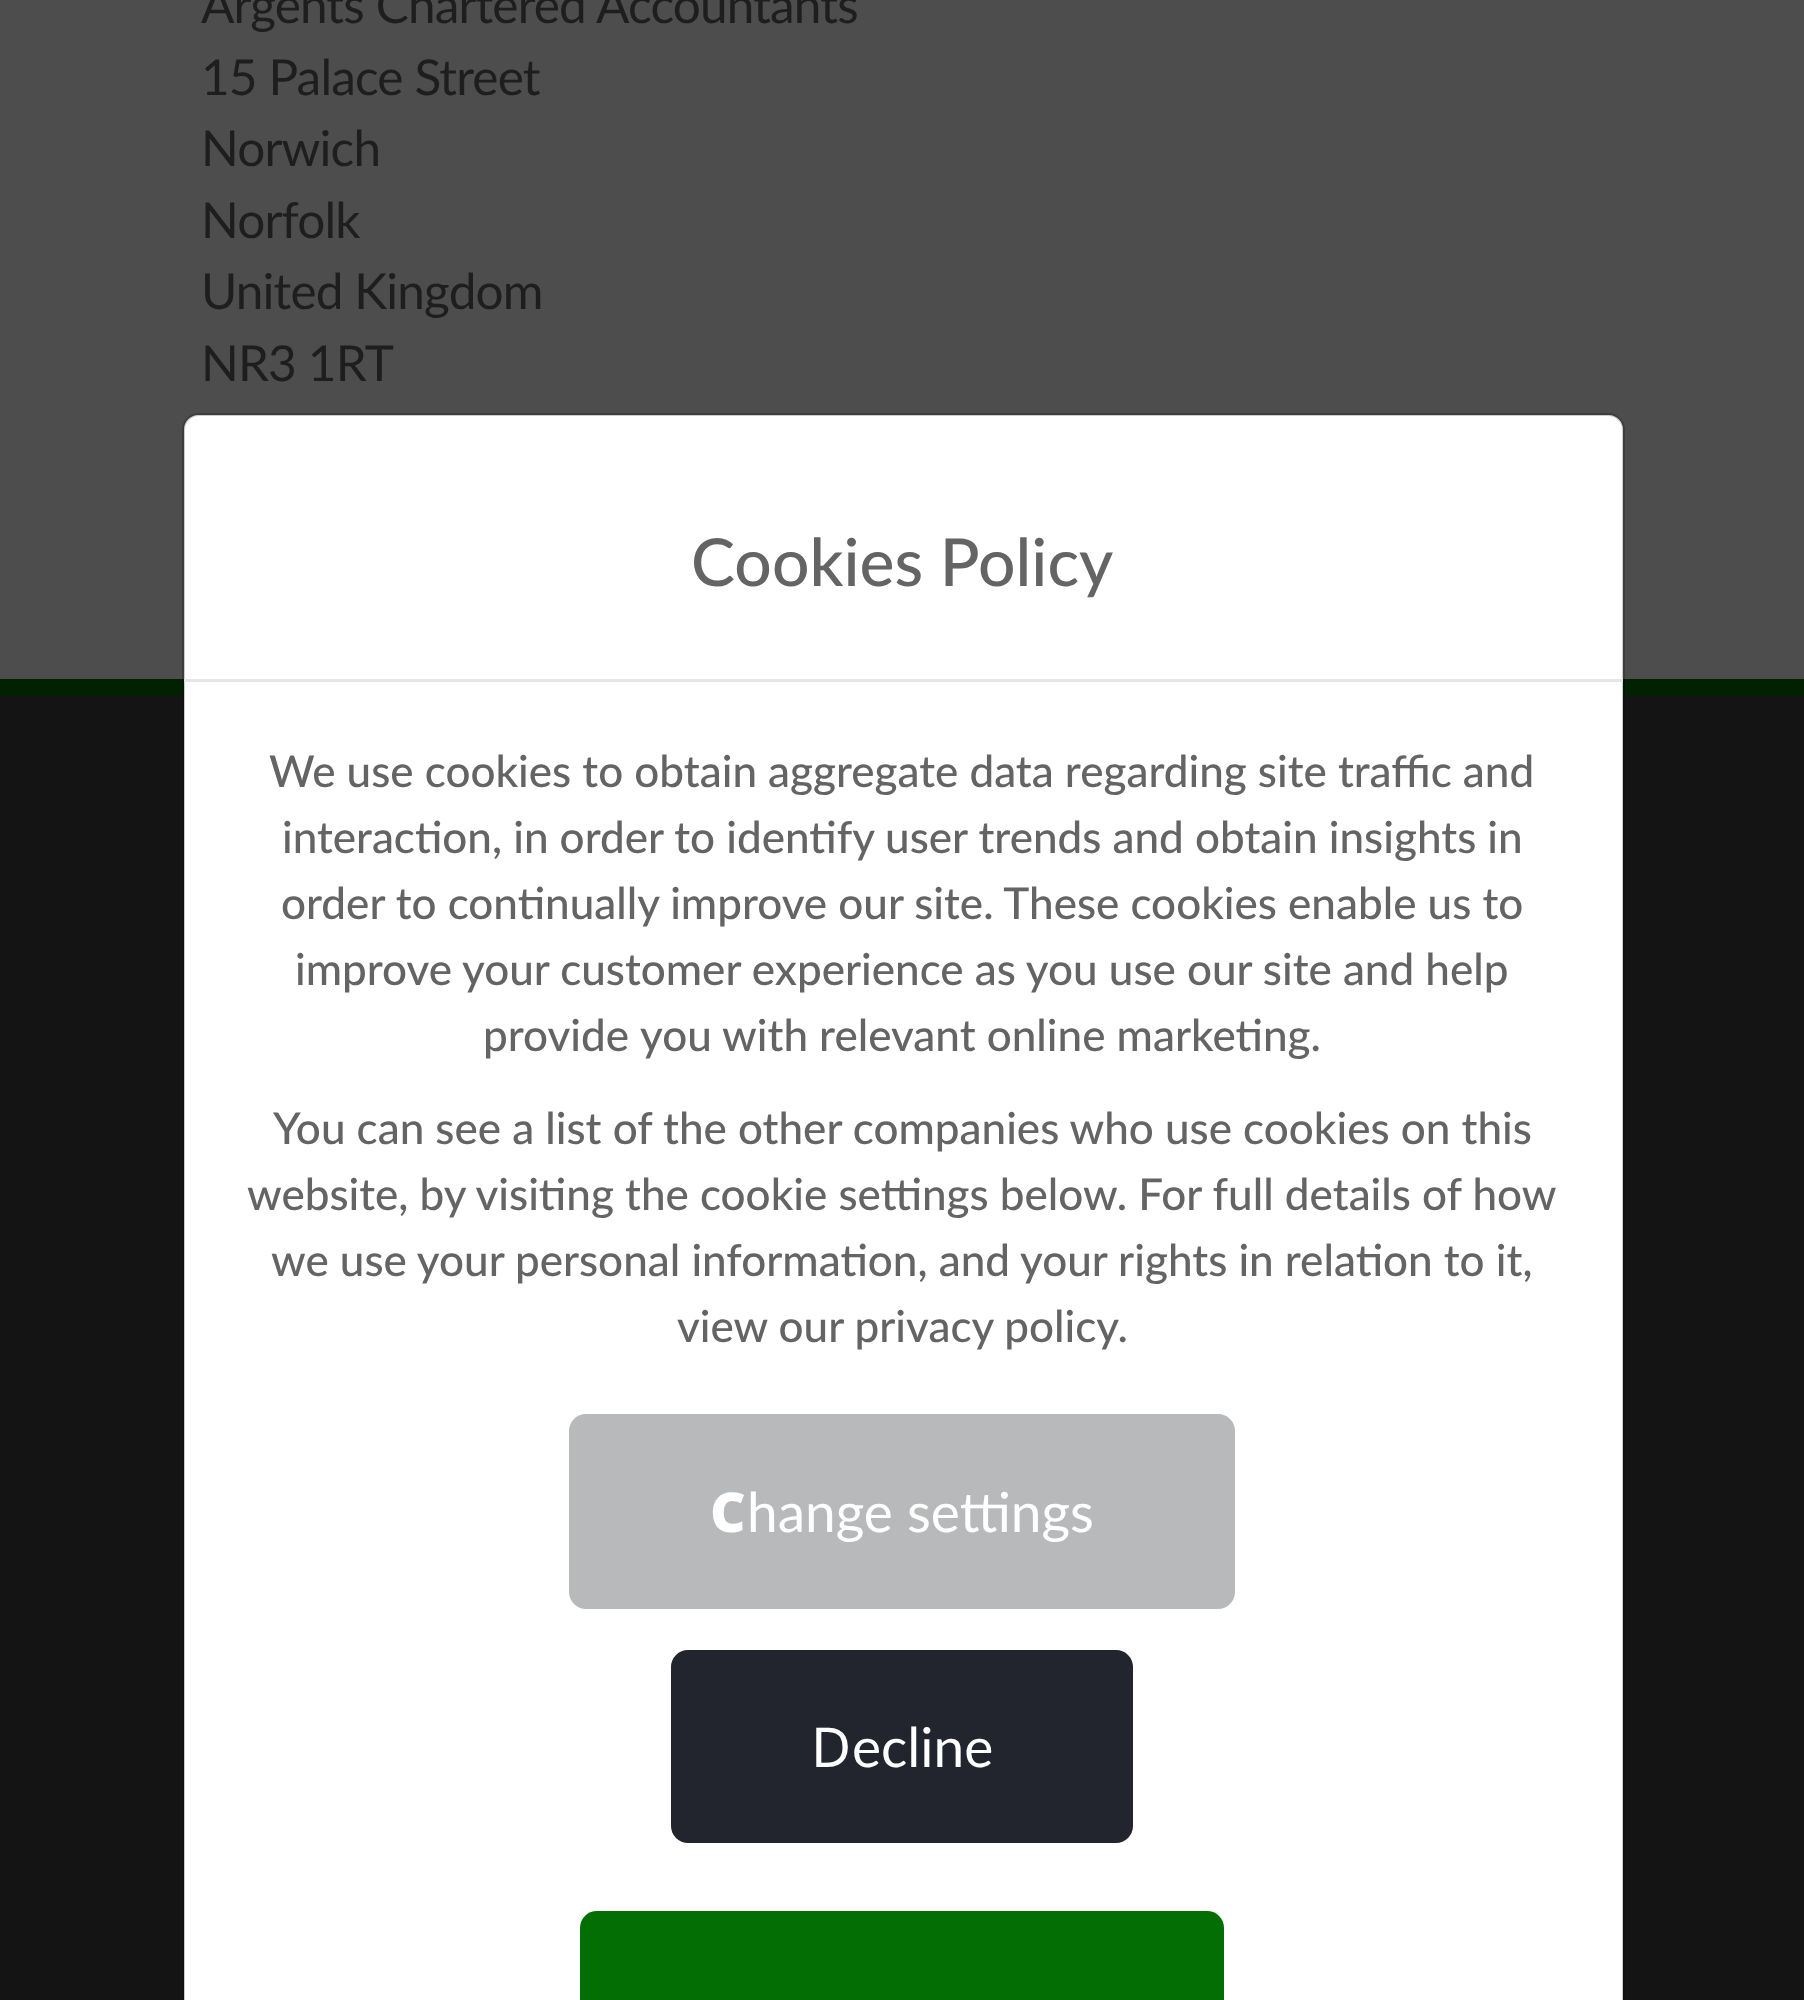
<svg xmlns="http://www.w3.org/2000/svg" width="1804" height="2000">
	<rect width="100%" height="100%" fill="#4D4D4D" />
	<g font-family="Lato" font-size="49.5" letter-spacing="-0.85" fill="#1E1E1E">
		<text x="201" y="23">Argents Chartered Accountants</text>
		<text x="201" y="95">15 Palace Street</text>
		<text x="201" y="166">Norwich</text>
		<text x="201" y="238">Norfolk</text>
		<text x="201" y="309">United Kingdom</text>
		<text x="201" y="381">NR3 1RT</text>
	</g>
	<rect x="0" y="696" width="1804" height="1304" fill="#141414" />
	<rect x="0" y="679" width="1804" height="17" fill="#012101" />
	<path d="M198 415H1609C1616.5 415 1623 421.5 1623 429V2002H184V429C184 421.5 190.5 415 198 415Z" fill="#FFFFFF" />
	<rect x="183.5" y="414.5" width="1440" height="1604" rx="15.5" fill="none" stroke="#000000" stroke-opacity="0.2" stroke-width="3" />
	<rect x="184" y="679" width="1439" height="3" fill="#E5E5E5" />
	<text x="691" y="586" font-family="Lato" font-size="66" font-weight="500" fill="#646464">Cookies Policy</text>
	<g font-family="Lato" font-size="44" font-weight="500" fill="#646464">
		<text x="269" y="787">We use cookies to obtain aggregate data regarding site traffic and</text>
		<text x="282" y="853">interaction, in order to identify user trends and obtain insights in</text>
		<text x="281" y="919">order to continually improve our site. These cookies enable us to</text>
		<text x="295" y="985">improve your customer experience as you use our site and help</text>
		<text x="483" y="1051">provide</text>
		<text x="640" y="1051">you with relevant online marketing.</text>
		<text x="273" y="1144">You can see a list of the other companies who use cookies on this</text>
		<text x="247" y="1210">website, by visiting the cookie settings below. For full details of how</text>
		<text x="271" y="1276">we use your personal information, and your rights in relation to it,</text>
		<text x="677" y="1342">view our privacy policy.</text>
	</g>
	<rect x="569" y="1414" width="666" height="195" rx="17" fill="#B8B9BB" />
	<text x="710" y="1532" font-family="Noto Sans" font-size="55" font-weight="900" fill="#FFFFFF">C</text>
	<text x="747" y="1532" font-family="Lato" font-size="55" fill="#FFFFFF">hange settings</text>
	<rect x="671" y="1650" width="462" height="193" rx="17" fill="#22242E" />
	<text x="811" y="1767" font-family="Noto Sans" font-size="55" fill="#FFFFFF">D</text>
	<text x="852" y="1767" font-family="Lato" font-size="55" fill="#FFFFFF">ecline</text>
	<path d="M597 1911H1207C1216.5 1911 1224 1918.5 1224 1928V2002H580V1928C580 1918.5 587.5 1911 597 1911Z" fill="#036E03" />
</svg>
